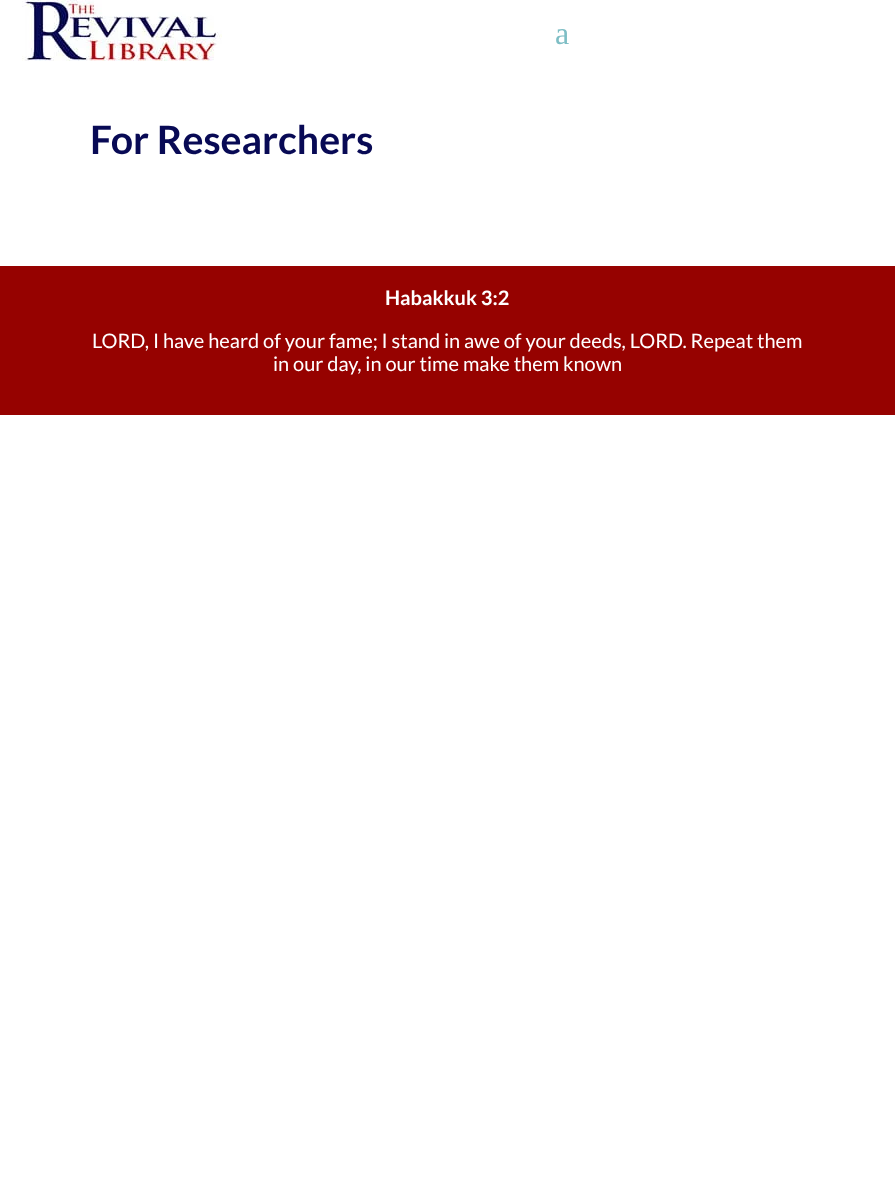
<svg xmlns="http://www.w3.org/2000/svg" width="895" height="1189">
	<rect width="100%" height="100%" fill="#FFFFFF" />
	<image x="22" y="0" width="200" height="61" href="assets/img1.png" />
	<text x="555" y="44" font-family="Liberation Serif" font-size="32" fill="#7EBEC5">a</text>
	<text x="90" y="154" font-family="Lato" font-size="39.25" font-weight="700" fill="#080A55">For Researchers</text>
	<rect x="0" y="266" width="895" height="149" fill="#960200" />
	<text x="385" y="305" font-family="Lato" font-size="20" font-weight="700" fill="#FFFFFF">Habakkuk 3:2</text>
	<g font-family="Lato" font-size="20" fill="#FFFFFF">
		<text x="92" y="348">LORD, I have heard of your fame; I stand in awe of your deeds, LORD. Repeat them</text>
		<text x="273" y="371">in our day, in our time make them known</text>
	</g>
</svg>
